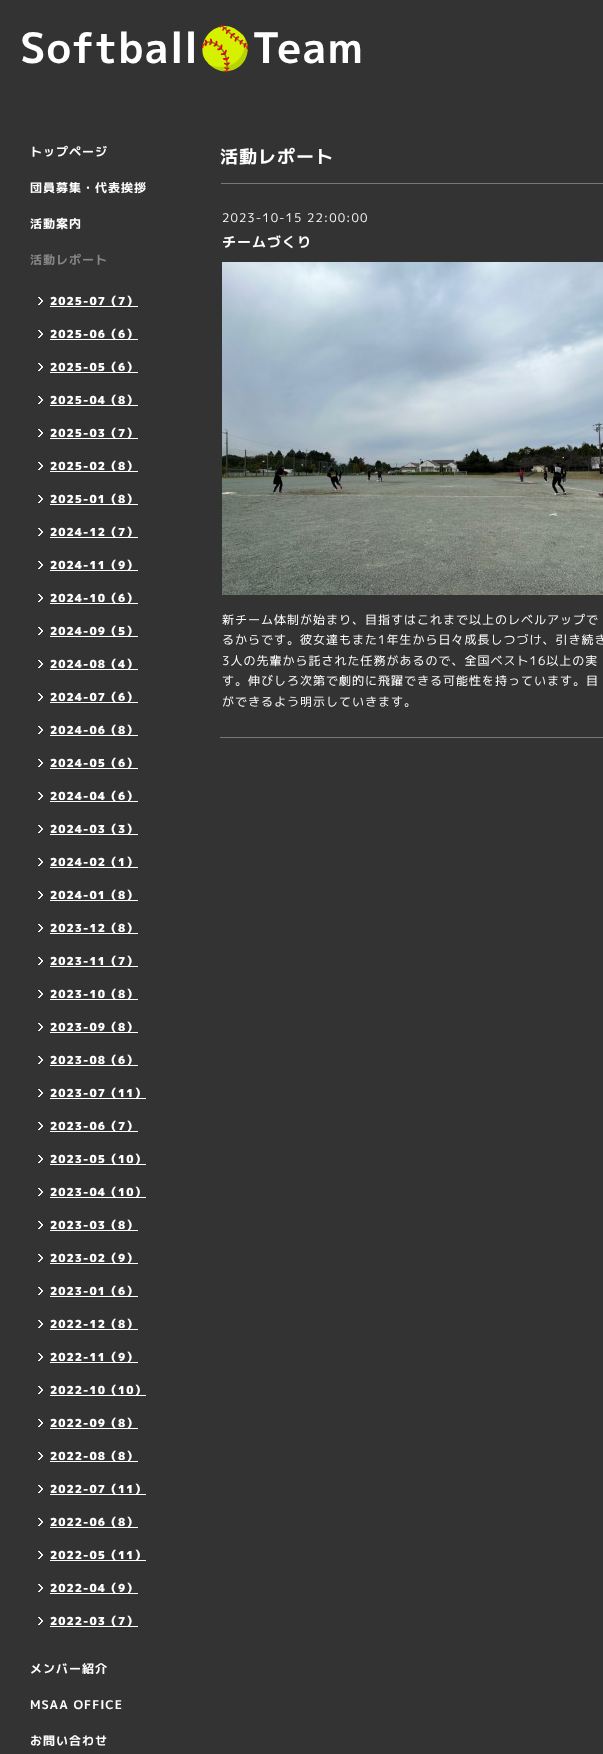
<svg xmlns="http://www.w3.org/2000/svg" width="603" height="1754">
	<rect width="100%" height="100%" fill="#333333" />
	<text x="20" y="63" font-family="'M PLUS 1p'" font-size="42" font-weight="700" letter-spacing="1" fill="#FFFFFF">Softball</text>
	<text x="199" y="63" font-family="Noto Color Emoji" font-size="42" font-weight="700" letter-spacing="1" fill="#FFFFFF">🥎</text>
	<text x="252" y="63" font-family="'M PLUS 1p'" font-size="42" font-weight="700" letter-spacing="1" fill="#FFFFFF">Team</text>
	<g font-family="'M PLUS 1p'" font-size="12" font-weight="700" letter-spacing="1" fill="#FFFFFF">
		<text x="30" y="156">トップページ</text>
		<text x="30" y="192">団員募集・代表挨拶</text>
		<text x="30" y="228">活動案内</text>
	</g>
	<text x="30" y="264" font-family="'M PLUS 1p'" font-size="12" font-weight="700" letter-spacing="1" fill="#878787">活動レポート</text>
	<image x="38" y="297" width="5" height="8" href="assets/img1.png" />
	<rect x="50" y="306" width="88" height="1" fill="#FFFFFF" />
	<text x="50" y="305" font-family="'M PLUS 1p'" font-size="11" font-weight="900" letter-spacing="1" fill="#FFFFFF">2025-07（7）</text>
	<image x="38" y="330" width="5" height="8" href="assets/img1.png" />
	<rect x="50" y="339" width="88" height="1" fill="#FFFFFF" />
	<text x="50" y="338" font-family="'M PLUS 1p'" font-size="11" font-weight="900" letter-spacing="1" fill="#FFFFFF">2025-06（6）</text>
	<image x="38" y="363" width="5" height="8" href="assets/img1.png" />
	<rect x="50" y="372" width="88" height="1" fill="#FFFFFF" />
	<text x="50" y="371" font-family="'M PLUS 1p'" font-size="11" font-weight="900" letter-spacing="1" fill="#FFFFFF">2025-05（6）</text>
	<image x="38" y="396" width="5" height="8" href="assets/img1.png" />
	<rect x="50" y="405" width="88" height="1" fill="#FFFFFF" />
	<text x="50" y="404" font-family="'M PLUS 1p'" font-size="11" font-weight="900" letter-spacing="1" fill="#FFFFFF">2025-04（8）</text>
	<image x="38" y="429" width="5" height="8" href="assets/img1.png" />
	<rect x="50" y="438" width="88" height="1" fill="#FFFFFF" />
	<text x="50" y="437" font-family="'M PLUS 1p'" font-size="11" font-weight="900" letter-spacing="1" fill="#FFFFFF">2025-03（7）</text>
	<image x="38" y="462" width="5" height="8" href="assets/img1.png" />
	<rect x="50" y="471" width="88" height="1" fill="#FFFFFF" />
	<text x="50" y="470" font-family="'M PLUS 1p'" font-size="11" font-weight="900" letter-spacing="1" fill="#FFFFFF">2025-02（8）</text>
	<image x="38" y="495" width="5" height="8" href="assets/img1.png" />
	<rect x="50" y="504" width="88" height="1" fill="#FFFFFF" />
	<text x="50" y="503" font-family="'M PLUS 1p'" font-size="11" font-weight="900" letter-spacing="1" fill="#FFFFFF">2025-01（8）</text>
	<image x="38" y="528" width="5" height="8" href="assets/img1.png" />
	<rect x="50" y="537" width="88" height="1" fill="#FFFFFF" />
	<text x="50" y="536" font-family="'M PLUS 1p'" font-size="11" font-weight="900" letter-spacing="1" fill="#FFFFFF">2024-12（7）</text>
	<image x="38" y="561" width="5" height="8" href="assets/img1.png" />
	<rect x="50" y="570" width="88" height="1" fill="#FFFFFF" />
	<text x="50" y="569" font-family="'M PLUS 1p'" font-size="11" font-weight="900" letter-spacing="1" fill="#FFFFFF">2024-11（9）</text>
	<image x="38" y="594" width="5" height="8" href="assets/img1.png" />
	<rect x="50" y="603" width="88" height="1" fill="#FFFFFF" />
	<text x="50" y="602" font-family="'M PLUS 1p'" font-size="11" font-weight="900" letter-spacing="1" fill="#FFFFFF">2024-10（6）</text>
	<image x="38" y="627" width="5" height="8" href="assets/img1.png" />
	<rect x="50" y="636" width="88" height="1" fill="#FFFFFF" />
	<text x="50" y="635" font-family="'M PLUS 1p'" font-size="11" font-weight="900" letter-spacing="1" fill="#FFFFFF">2024-09（5）</text>
	<image x="38" y="660" width="5" height="8" href="assets/img1.png" />
	<rect x="50" y="669" width="88" height="1" fill="#FFFFFF" />
	<text x="50" y="668" font-family="'M PLUS 1p'" font-size="11" font-weight="900" letter-spacing="1" fill="#FFFFFF">2024-08（4）</text>
	<image x="38" y="693" width="5" height="8" href="assets/img1.png" />
	<rect x="50" y="702" width="88" height="1" fill="#FFFFFF" />
	<text x="50" y="701" font-family="'M PLUS 1p'" font-size="11" font-weight="900" letter-spacing="1" fill="#FFFFFF">2024-07（6）</text>
	<image x="38" y="726" width="5" height="8" href="assets/img1.png" />
	<rect x="50" y="735" width="88" height="1" fill="#FFFFFF" />
	<text x="50" y="734" font-family="'M PLUS 1p'" font-size="11" font-weight="900" letter-spacing="1" fill="#FFFFFF">2024-06（8）</text>
	<image x="38" y="759" width="5" height="8" href="assets/img1.png" />
	<rect x="50" y="768" width="88" height="1" fill="#FFFFFF" />
	<text x="50" y="767" font-family="'M PLUS 1p'" font-size="11" font-weight="900" letter-spacing="1" fill="#FFFFFF">2024-05（6）</text>
	<image x="38" y="792" width="5" height="8" href="assets/img1.png" />
	<rect x="50" y="801" width="88" height="1" fill="#FFFFFF" />
	<text x="50" y="800" font-family="'M PLUS 1p'" font-size="11" font-weight="900" letter-spacing="1" fill="#FFFFFF">2024-04（6）</text>
	<image x="38" y="825" width="5" height="8" href="assets/img1.png" />
	<rect x="50" y="834" width="88" height="1" fill="#FFFFFF" />
	<text x="50" y="833" font-family="'M PLUS 1p'" font-size="11" font-weight="900" letter-spacing="1" fill="#FFFFFF">2024-03（3）</text>
	<image x="38" y="858" width="5" height="8" href="assets/img1.png" />
	<rect x="50" y="867" width="88" height="1" fill="#FFFFFF" />
	<text x="50" y="866" font-family="'M PLUS 1p'" font-size="11" font-weight="900" letter-spacing="1" fill="#FFFFFF">2024-02（1）</text>
	<image x="38" y="891" width="5" height="8" href="assets/img1.png" />
	<rect x="50" y="900" width="88" height="1" fill="#FFFFFF" />
	<text x="50" y="899" font-family="'M PLUS 1p'" font-size="11" font-weight="900" letter-spacing="1" fill="#FFFFFF">2024-01（8）</text>
	<image x="38" y="924" width="5" height="8" href="assets/img1.png" />
	<rect x="50" y="933" width="88" height="1" fill="#FFFFFF" />
	<text x="50" y="932" font-family="'M PLUS 1p'" font-size="11" font-weight="900" letter-spacing="1" fill="#FFFFFF">2023-12（8）</text>
	<image x="38" y="957" width="5" height="8" href="assets/img1.png" />
	<rect x="50" y="966" width="88" height="1" fill="#FFFFFF" />
	<text x="50" y="965" font-family="'M PLUS 1p'" font-size="11" font-weight="900" letter-spacing="1" fill="#FFFFFF">2023-11（7）</text>
	<image x="38" y="990" width="5" height="8" href="assets/img1.png" />
	<rect x="50" y="999" width="88" height="1" fill="#FFFFFF" />
	<text x="50" y="998" font-family="'M PLUS 1p'" font-size="11" font-weight="900" letter-spacing="1" fill="#FFFFFF">2023-10（8）</text>
	<image x="38" y="1023" width="5" height="8" href="assets/img1.png" />
	<rect x="50" y="1032" width="88" height="1" fill="#FFFFFF" />
	<text x="50" y="1031" font-family="'M PLUS 1p'" font-size="11" font-weight="900" letter-spacing="1" fill="#FFFFFF">2023-09（8）</text>
	<image x="38" y="1056" width="5" height="8" href="assets/img1.png" />
	<rect x="50" y="1065" width="88" height="1" fill="#FFFFFF" />
	<text x="50" y="1064" font-family="'M PLUS 1p'" font-size="11" font-weight="900" letter-spacing="1" fill="#FFFFFF">2023-08（6）</text>
	<image x="38" y="1089" width="5" height="8" href="assets/img1.png" />
	<rect x="50" y="1098" width="96" height="1" fill="#FFFFFF" />
	<text x="50" y="1097" font-family="'M PLUS 1p'" font-size="11" font-weight="900" letter-spacing="1" fill="#FFFFFF">2023-07（11）</text>
	<image x="38" y="1122" width="5" height="8" href="assets/img1.png" />
	<rect x="50" y="1131" width="88" height="1" fill="#FFFFFF" />
	<text x="50" y="1130" font-family="'M PLUS 1p'" font-size="11" font-weight="900" letter-spacing="1" fill="#FFFFFF">2023-06（7）</text>
	<image x="38" y="1155" width="5" height="8" href="assets/img1.png" />
	<rect x="50" y="1164" width="96" height="1" fill="#FFFFFF" />
	<text x="50" y="1163" font-family="'M PLUS 1p'" font-size="11" font-weight="900" letter-spacing="1" fill="#FFFFFF">2023-05（10）</text>
	<image x="38" y="1188" width="5" height="8" href="assets/img1.png" />
	<rect x="50" y="1197" width="96" height="1" fill="#FFFFFF" />
	<text x="50" y="1196" font-family="'M PLUS 1p'" font-size="11" font-weight="900" letter-spacing="1" fill="#FFFFFF">2023-04（10）</text>
	<image x="38" y="1221" width="5" height="8" href="assets/img1.png" />
	<rect x="50" y="1230" width="88" height="1" fill="#FFFFFF" />
	<text x="50" y="1229" font-family="'M PLUS 1p'" font-size="11" font-weight="900" letter-spacing="1" fill="#FFFFFF">2023-03（8）</text>
	<image x="38" y="1254" width="5" height="8" href="assets/img1.png" />
	<rect x="50" y="1263" width="88" height="1" fill="#FFFFFF" />
	<text x="50" y="1262" font-family="'M PLUS 1p'" font-size="11" font-weight="900" letter-spacing="1" fill="#FFFFFF">2023-02（9）</text>
	<image x="38" y="1287" width="5" height="8" href="assets/img1.png" />
	<rect x="50" y="1296" width="88" height="1" fill="#FFFFFF" />
	<text x="50" y="1295" font-family="'M PLUS 1p'" font-size="11" font-weight="900" letter-spacing="1" fill="#FFFFFF">2023-01（6）</text>
	<image x="38" y="1320" width="5" height="8" href="assets/img1.png" />
	<rect x="50" y="1329" width="88" height="1" fill="#FFFFFF" />
	<text x="50" y="1328" font-family="'M PLUS 1p'" font-size="11" font-weight="900" letter-spacing="1" fill="#FFFFFF">2022-12（8）</text>
	<image x="38" y="1353" width="5" height="8" href="assets/img1.png" />
	<rect x="50" y="1362" width="88" height="1" fill="#FFFFFF" />
	<text x="50" y="1361" font-family="'M PLUS 1p'" font-size="11" font-weight="900" letter-spacing="1" fill="#FFFFFF">2022-11（9）</text>
	<image x="38" y="1386" width="5" height="8" href="assets/img1.png" />
	<rect x="50" y="1395" width="96" height="1" fill="#FFFFFF" />
	<text x="50" y="1394" font-family="'M PLUS 1p'" font-size="11" font-weight="900" letter-spacing="1" fill="#FFFFFF">2022-10（10）</text>
	<image x="38" y="1419" width="5" height="8" href="assets/img1.png" />
	<rect x="50" y="1428" width="88" height="1" fill="#FFFFFF" />
	<text x="50" y="1427" font-family="'M PLUS 1p'" font-size="11" font-weight="900" letter-spacing="1" fill="#FFFFFF">2022-09（8）</text>
	<image x="38" y="1452" width="5" height="8" href="assets/img1.png" />
	<rect x="50" y="1461" width="88" height="1" fill="#FFFFFF" />
	<text x="50" y="1460" font-family="'M PLUS 1p'" font-size="11" font-weight="900" letter-spacing="1" fill="#FFFFFF">2022-08（8）</text>
	<image x="38" y="1485" width="5" height="8" href="assets/img1.png" />
	<rect x="50" y="1494" width="96" height="1" fill="#FFFFFF" />
	<text x="50" y="1493" font-family="'M PLUS 1p'" font-size="11" font-weight="900" letter-spacing="1" fill="#FFFFFF">2022-07（11）</text>
	<image x="38" y="1518" width="5" height="8" href="assets/img1.png" />
	<rect x="50" y="1527" width="88" height="1" fill="#FFFFFF" />
	<text x="50" y="1526" font-family="'M PLUS 1p'" font-size="11" font-weight="900" letter-spacing="1" fill="#FFFFFF">2022-06（8）</text>
	<image x="38" y="1551" width="5" height="8" href="assets/img1.png" />
	<rect x="50" y="1560" width="96" height="1" fill="#FFFFFF" />
	<text x="50" y="1559" font-family="'M PLUS 1p'" font-size="11" font-weight="900" letter-spacing="1" fill="#FFFFFF">2022-05（11）</text>
	<image x="38" y="1584" width="5" height="8" href="assets/img1.png" />
	<rect x="50" y="1593" width="88" height="1" fill="#FFFFFF" />
	<text x="50" y="1592" font-family="'M PLUS 1p'" font-size="11" font-weight="900" letter-spacing="1" fill="#FFFFFF">2022-04（9）</text>
	<image x="38" y="1617" width="5" height="8" href="assets/img1.png" />
	<rect x="50" y="1626" width="88" height="1" fill="#FFFFFF" />
	<text x="50" y="1625" font-family="'M PLUS 1p'" font-size="11" font-weight="900" letter-spacing="1" fill="#FFFFFF">2022-03（7）</text>
	<g font-family="'M PLUS 1p'" font-size="12" font-weight="700" letter-spacing="1" fill="#FFFFFF">
		<text x="30" y="1673">メンバー紹介</text>
		<text x="30" y="1709">MSAA OFFICE</text>
		<text x="30" y="1745">お問い合わせ</text>
	</g>
	<text x="220" y="163" font-family="'M PLUS 1p'" font-size="18" font-weight="700" letter-spacing="1" fill="#FFFFFF">活動レポート</text>
	<rect x="220" y="737" width="383" height="1" fill="#777777" />
	<rect x="221" y="183" width="382" height="1" fill="#777777" />
	<text x="222" y="222" font-family="'M PLUS 1p'" font-size="12" letter-spacing="1" fill="#FFFFFF">2023-10-15 22:00:00</text>
	<text x="222" y="247" font-family="'M PLUS 1p'" font-size="14" font-weight="700" letter-spacing="1" fill="#FFFFFF">チームづくり</text>
	<image x="222" y="262" width="381" height="333" href="assets/img2.png" />
	<g font-family="'M PLUS 1p'" font-size="12" letter-spacing="1" fill="#FFFFFF">
		<text x="222" y="624">新チーム体制が始まり、目指すはこれまで以上のレベルアップで</text>
		<text x="222" y="644">るからです。彼女達もまた1年生から日々成長しつづけ、引き続き</text>
		<text x="222" y="665">3人の先輩から託された任務があるので、全国ベスト16以上の実</text>
		<text x="222" y="685">す。伸びしろ次第で劇的に飛躍できる可能性を持っています。目</text>
		<text x="222" y="706">ができるよう明示していきます。</text>
	</g>
</svg>
